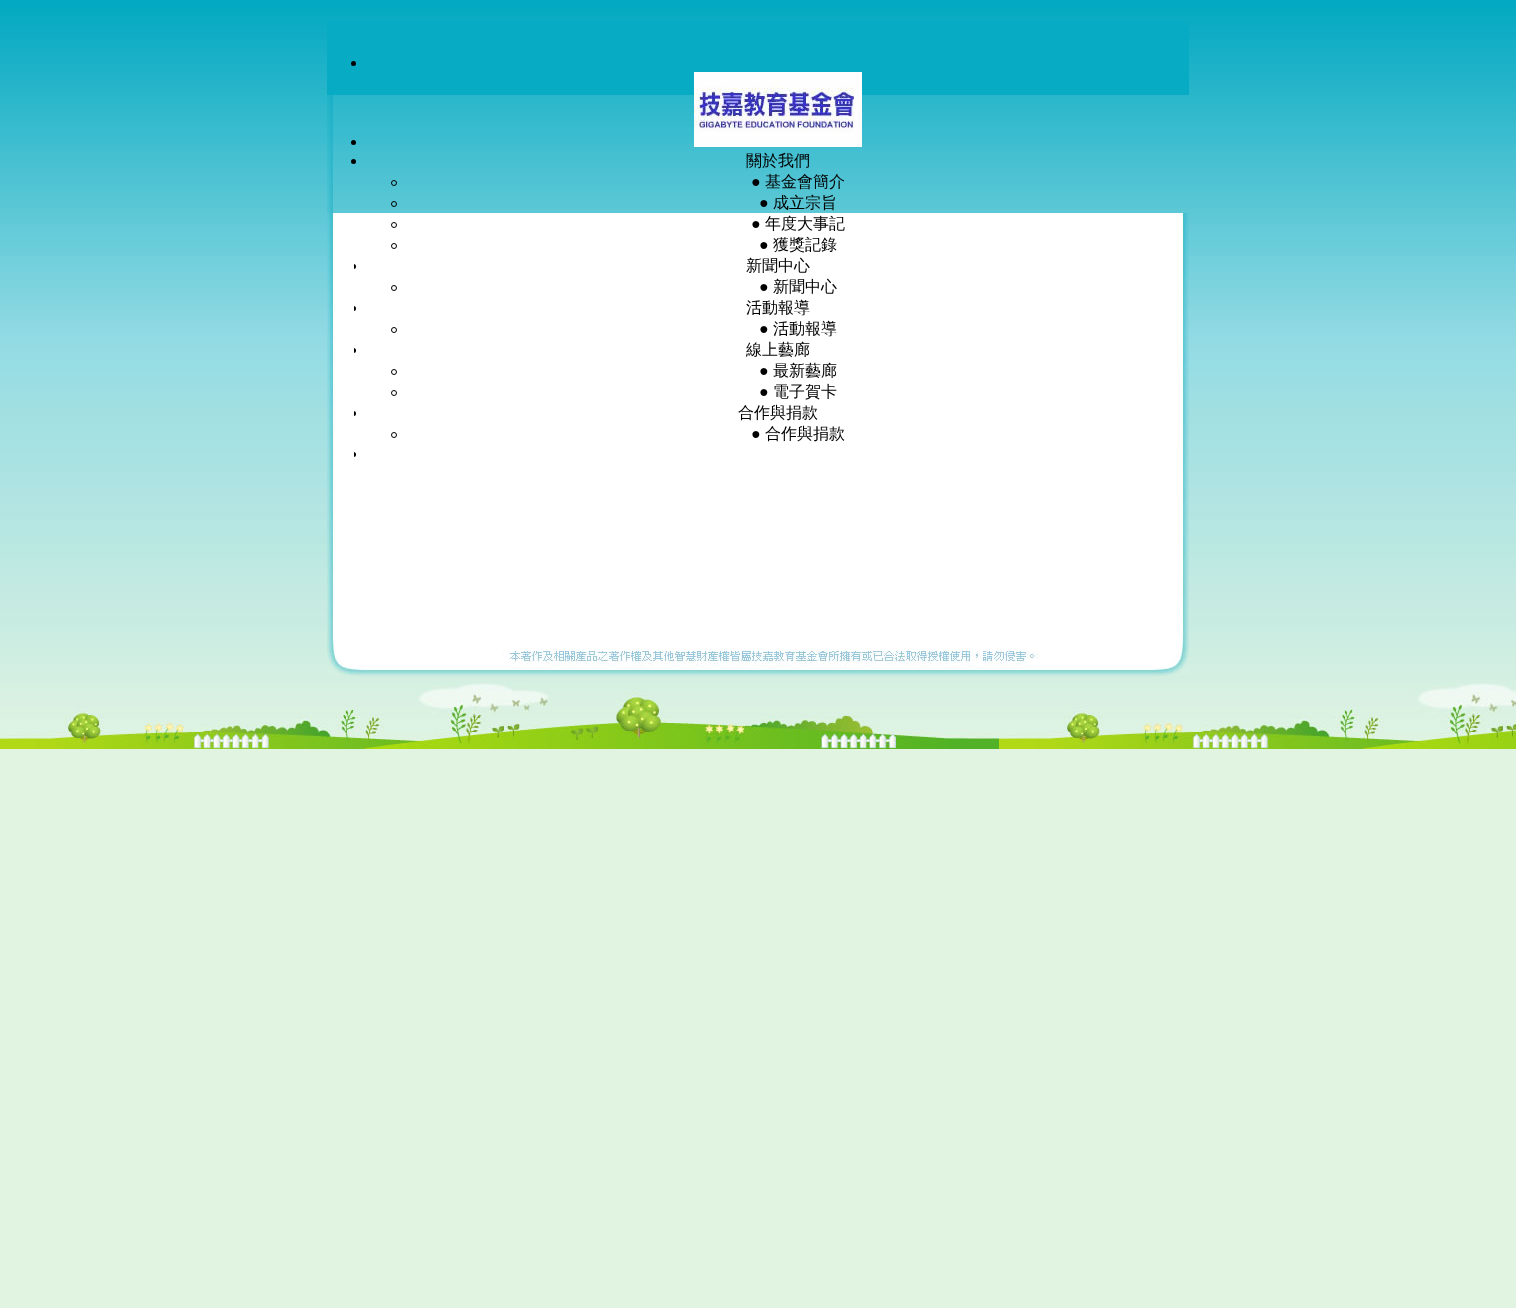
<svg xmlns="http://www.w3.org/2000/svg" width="1516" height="1308">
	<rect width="100%" height="100%" fill="#FFFFFF" />
	<image x="0" y="0" width="1516" height="1308" href="assets/img1.png" />
	<image x="327" y="95" width="6" height="118" href="assets/img2.png" />
	<rect x="327" y="20" width="862" height="75" fill="#07ABC3" />
	<circle cx="353.5" cy="63.5" r="2.5" fill="#000000" />
	<circle cx="353.5" cy="142.5" r="2.5" fill="#000000" />
	<image x="694" y="72" width="168" height="75" href="assets/img3.png" />
	<circle cx="353.5" cy="161.5" r="2.5" fill="#000000" />
	<text x="746" y="166" font-family="WenQuanYi Zen Hei" font-size="16" font-weight="500" fill="#000000">關於我們</text>
	<circle cx="394" cy="183" r="2.5" fill="none" stroke="#000000" />
	<text x="751" y="187" font-family="Liberation Serif" font-size="16" fill="#000000">●</text>
	<text x="765" y="187" font-family="WenQuanYi Zen Hei" font-size="16" font-weight="500" fill="#000000">基金會簡介</text>
	<circle cx="394" cy="204" r="2.5" fill="none" stroke="#000000" />
	<text x="759" y="208" font-family="Liberation Serif" font-size="16" fill="#000000">●</text>
	<text x="773" y="208" font-family="WenQuanYi Zen Hei" font-size="16" font-weight="500" fill="#000000">成立宗旨</text>
	<rect x="354" y="213" width="808" height="430" fill="#FFFFFF" />
	<circle cx="394" cy="225" r="2.5" fill="none" stroke="#000000" />
	<text x="751" y="229" font-family="Liberation Serif" font-size="16" fill="#000000">●</text>
	<text x="765" y="229" font-family="WenQuanYi Zen Hei" font-size="16" font-weight="500" fill="#000000">年度大事記</text>
	<circle cx="394" cy="246" r="2.5" fill="none" stroke="#000000" />
	<text x="759" y="250" font-family="Liberation Serif" font-size="16" fill="#000000">●</text>
	<text x="773" y="250" font-family="WenQuanYi Zen Hei" font-size="16" font-weight="500" fill="#000000">獲獎記錄</text>
	<circle cx="353.5" cy="266.5" r="2.5" fill="#000000" />
	<text x="746" y="271" font-family="WenQuanYi Zen Hei" font-size="16" font-weight="500" fill="#000000">新聞中心</text>
	<circle cx="394" cy="288" r="2.5" fill="none" stroke="#000000" />
	<text x="759" y="292" font-family="Liberation Serif" font-size="16" fill="#000000">●</text>
	<text x="773" y="292" font-family="WenQuanYi Zen Hei" font-size="16" font-weight="500" fill="#000000">新聞中心</text>
	<circle cx="353.5" cy="308.5" r="2.5" fill="#000000" />
	<text x="746" y="313" font-family="WenQuanYi Zen Hei" font-size="16" font-weight="500" fill="#000000">活動報導</text>
	<circle cx="394" cy="330" r="2.5" fill="none" stroke="#000000" />
	<text x="759" y="334" font-family="Liberation Serif" font-size="16" fill="#000000">●</text>
	<text x="773" y="334" font-family="WenQuanYi Zen Hei" font-size="16" font-weight="500" fill="#000000">活動報導</text>
	<circle cx="353.5" cy="350.5" r="2.5" fill="#000000" />
	<text x="746" y="355" font-family="WenQuanYi Zen Hei" font-size="16" font-weight="500" fill="#000000">線上藝廊</text>
	<circle cx="394" cy="372" r="2.5" fill="none" stroke="#000000" />
	<text x="759" y="376" font-family="Liberation Serif" font-size="16" fill="#000000">●</text>
	<text x="773" y="376" font-family="WenQuanYi Zen Hei" font-size="16" font-weight="500" fill="#000000">最新藝廊</text>
	<circle cx="394" cy="393" r="2.5" fill="none" stroke="#000000" />
	<text x="759" y="397" font-family="Liberation Serif" font-size="16" fill="#000000">●</text>
	<text x="773" y="397" font-family="WenQuanYi Zen Hei" font-size="16" font-weight="500" fill="#000000">電子賀卡</text>
	<circle cx="353.5" cy="413.5" r="2.5" fill="#000000" />
	<text x="738" y="418" font-family="WenQuanYi Zen Hei" font-size="16" font-weight="500" fill="#000000">合作與捐款</text>
	<circle cx="394" cy="435" r="2.5" fill="none" stroke="#000000" />
	<text x="751" y="439" font-family="Liberation Serif" font-size="16" fill="#000000">●</text>
	<text x="765" y="439" font-family="WenQuanYi Zen Hei" font-size="16" font-weight="500" fill="#000000">合作與捐款</text>
	<circle cx="353.5" cy="454.5" r="2.5" fill="#000000" />
	<image x="327" y="213" width="27" height="430" href="assets/img4.png" />
	<image x="1162" y="213" width="16" height="430" href="assets/img5.png" />
	<image x="1178" y="213" width="11" height="430" href="assets/img6.png" />
	<image x="327" y="643" width="862" height="34" href="assets/img7.png" />
	<image x="0" y="683" width="1516" height="66" href="assets/img8.png" />
</svg>
